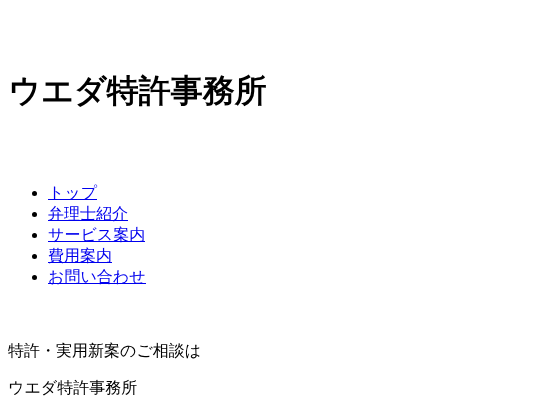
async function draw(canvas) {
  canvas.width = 549;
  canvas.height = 416;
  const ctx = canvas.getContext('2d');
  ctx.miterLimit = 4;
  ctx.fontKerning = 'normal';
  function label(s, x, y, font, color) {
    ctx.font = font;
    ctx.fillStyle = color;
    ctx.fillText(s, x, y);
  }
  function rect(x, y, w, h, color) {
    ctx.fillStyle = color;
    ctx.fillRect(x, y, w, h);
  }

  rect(0, 0, 549, 416, '#fff');
  label('ウエダ特許事務所', 8, 102, 'bold 32px WenQuanYi Zen Hei', '#000');
  ctx.beginPath();
  ctx.arc(34.5, 193.5, 2.5, 0, 2 * Math.PI);
  ctx.fill();
  rect(48, 199, 49, 1, '#00e');
  label('トップ', 48, 198, '500 16px WenQuanYi Zen Hei', '#00e');
  ctx.fillStyle = '#000';
  ctx.beginPath();
  ctx.arc(34.5, 214.5, 2.5, 0, 2 * Math.PI);
  ctx.fill();
  rect(48, 220, 80, 1, '#00e');
  label('弁理士紹介', 48, 219, '500 16px WenQuanYi Zen Hei', '#00e');
  ctx.fillStyle = '#000';
  ctx.beginPath();
  ctx.arc(34.5, 235.5, 2.5, 0, 2 * Math.PI);
  ctx.fill();
  rect(48, 241, 97, 1, '#00e');
  label('サービス案内', 48, 240, '500 16px WenQuanYi Zen Hei', '#00e');
  ctx.fillStyle = '#000';
  ctx.beginPath();
  ctx.arc(34.5, 256.5, 2.5, 0, 2 * Math.PI);
  ctx.fill();
  rect(48, 262, 64, 1, '#00e');
  label('費用案内', 48, 261, '500 16px WenQuanYi Zen Hei', '#00e');
  ctx.fillStyle = '#000';
  ctx.beginPath();
  ctx.arc(34.5, 277.5, 2.5, 0, 2 * Math.PI);
  ctx.fill();
  rect(48, 283, 98, 1, '#00e');
  label('お問い合わせ', 48, 282, '500 16px WenQuanYi Zen Hei', '#00e');
  label('特許・実用新案のご相談は', 8, 356, '500 16px WenQuanYi Zen Hei', '#000');
  label('ウエダ特許事務所', 8, 393, '500 16px WenQuanYi Zen Hei', '#000');
}

draw(document.querySelector('canvas'));
